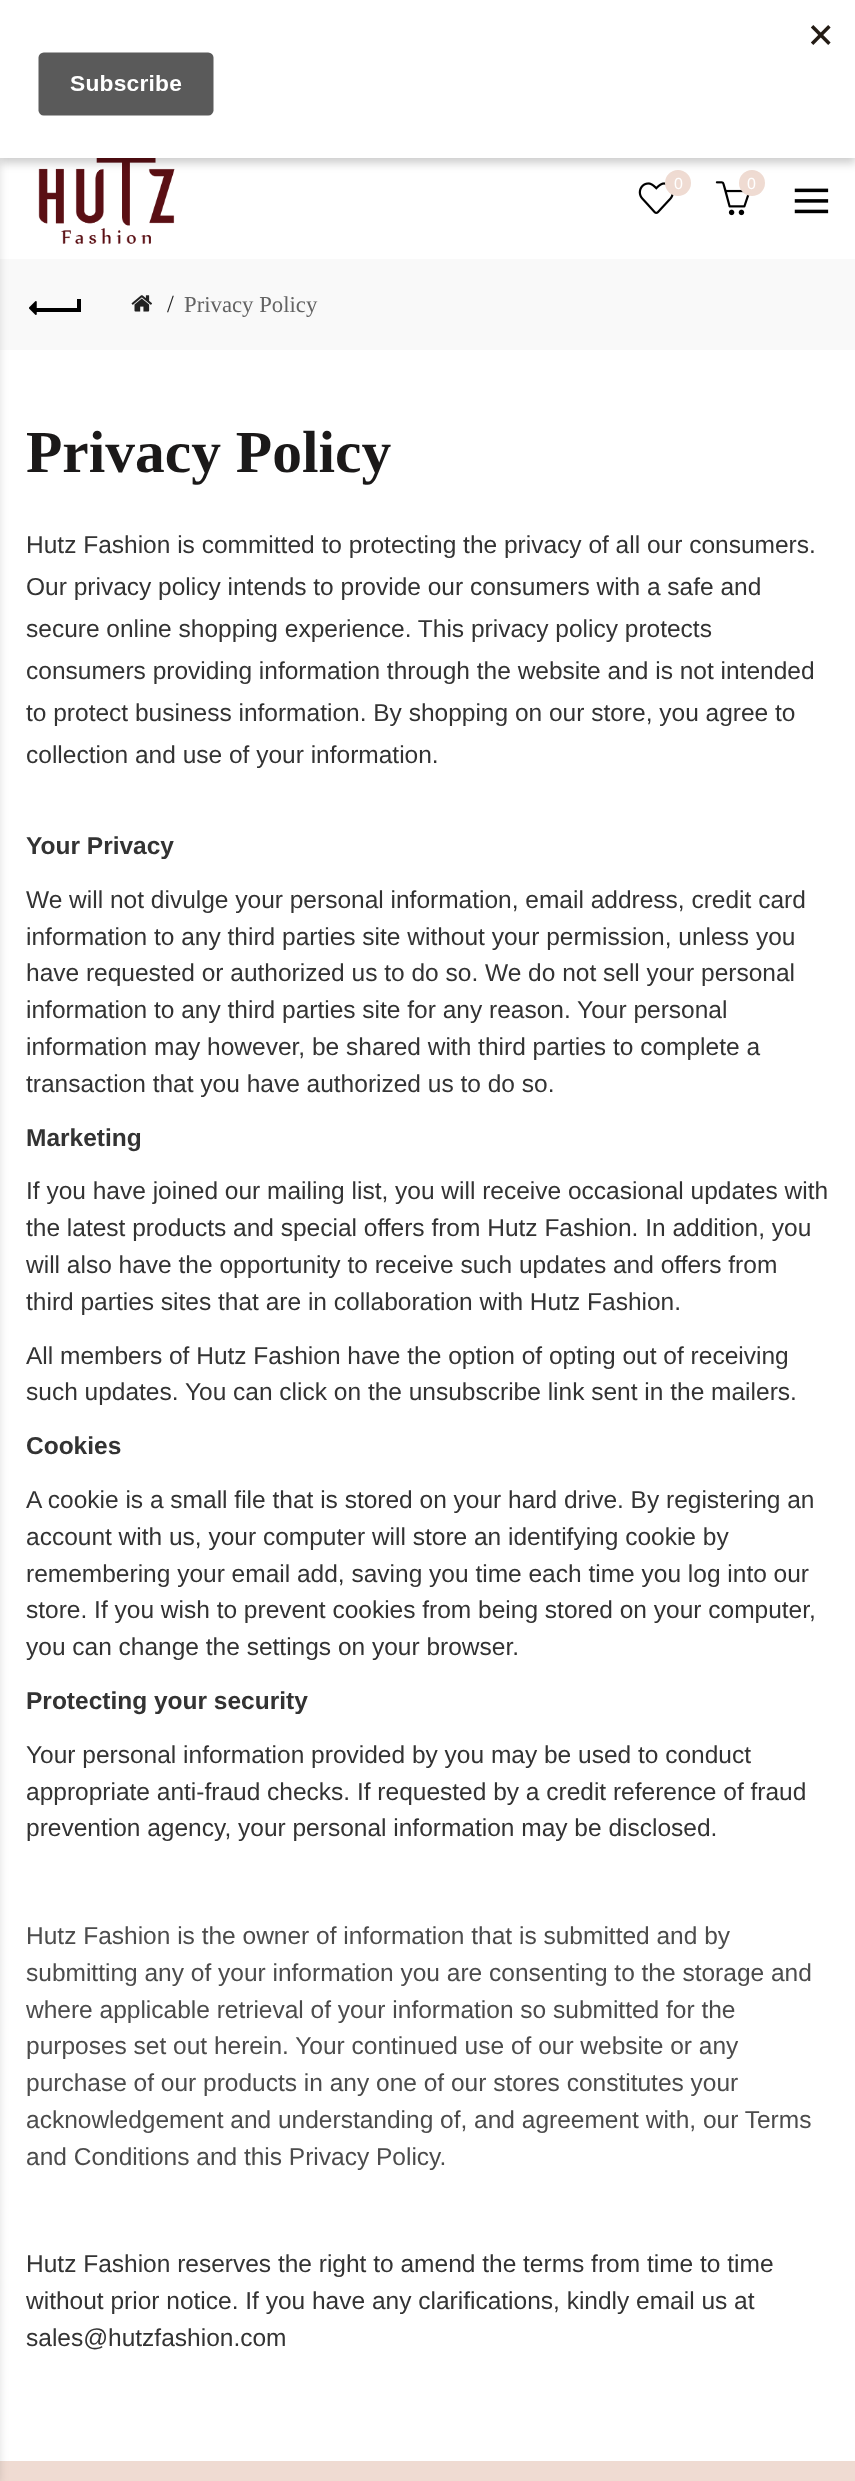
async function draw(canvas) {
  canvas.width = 855;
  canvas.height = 2481;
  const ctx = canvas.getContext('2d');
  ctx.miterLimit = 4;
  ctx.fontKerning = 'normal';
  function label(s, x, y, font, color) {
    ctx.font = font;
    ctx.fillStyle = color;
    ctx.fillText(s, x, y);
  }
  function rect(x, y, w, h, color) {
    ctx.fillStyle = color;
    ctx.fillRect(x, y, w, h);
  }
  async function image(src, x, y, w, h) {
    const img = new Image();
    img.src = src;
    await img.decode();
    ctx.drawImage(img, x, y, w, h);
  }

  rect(0, 0, 855, 2481, '#fff');
  rect(0, 259, 855, 91, '#f9f9f9');
  rect(0, 2461, 855, 20, '#efdbd2');
  ctx.fillStyle = '#00000021';
  ctx.filter = 'blur(4.5px)';
  ctx.beginPath();
  ctx.rect(-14, 2, 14, 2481);
  ctx.fill();
  ctx.filter = 'none';
  await image('assets/img2.png', 38, 158, 137, 86);
  await image('assets/img3.png', 638, 182, 36, 32);
  ctx.fillStyle = '#efdbd2';
  ctx.beginPath();
  ctx.arc(678, 183, 13, 0, 2 * Math.PI);
  ctx.fill();
  await image('assets/img4.png', 715, 181, 35, 35);
  ctx.beginPath();
  ctx.arc(752, 183, 13, 0, 2 * Math.PI);
  ctx.fill();
  ctx.fillStyle = '#00000033';
  ctx.filter = 'blur(5px)';
  ctx.beginPath();
  ctx.rect(0, 5, 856, 158);
  ctx.fill();
  ctx.filter = 'none';
  rect(0, 0, 855, 158, '#fff');
  await image('assets/img1.png', 38, 25, 793, 91);
  label('0', 674, 189, '16px Liberation Sans', '#fff');
  label('0', 747, 189, '16px Liberation Sans', '#fff');
  await image('assets/img5.png', 794, 188, 35, 26);
  rect(35, 308, 44, 4, '#000');
  await image('assets/img6.png', 29, 301, 8, 14);
  rect(77, 299, 4, 13, '#000');
  await image('assets/img7.png', 131, 295, 21, 17);
  label('/', 167, 312, '24.5px Liberation Serif', '#222');
  label('Privacy Policy', 184, 312, '22.75px Liberation Serif', '#636363');
  label('Privacy Policy', 26, 472, 'bold 59.5px Liberation Serif', '#1b1919');
  label('Hutz Fashion is committed to protecting the privacy of all our consumers.', 26, 553, '24.5px Liberation Sans', '#333');
  label('Our privacy policy intends to provide our consumers with a safe and', 26, 595, '24.5px Liberation Sans', '#333');
  label('secure online shopping experience. This privacy policy protects', 26, 637, '24.5px Liberation Sans', '#333');
  label('consumers providing information through the website and is not intended', 26, 679, '24.5px Liberation Sans', '#333');
  label('to protect business information. By shopping on our store, you agree to', 26, 721, '24.5px Liberation Sans', '#333');
  label('collection and use of your information.', 26, 763, '24.5px Liberation Sans', '#333');
  label('Your Privacy', 26, 854, 'bold 24.5px Liberation Sans', '#333');
  label('We will not divulge your personal information, email address, credit card', 26, 908, '24.5px Liberation Sans', '#333');
  label('information to any third parties site without your permission, unless you', 26, 945, '24.5px Liberation Sans', '#333');
  label('have requested or authorized us to do so. We do not sell your personal', 26, 981, '24.5px Liberation Sans', '#333');
  label('information to any third parties site for any reason. Your personal', 26, 1018, '24.5px Liberation Sans', '#333');
  label('information may however, be shared with third parties to complete a', 26, 1055, '24.5px Liberation Sans', '#333');
  label('transaction that you have authorized us to do so.', 26, 1092, '24.5px Liberation Sans', '#333');
  label('Marketing', 26, 1146, 'bold 24.5px Liberation Sans', '#333');
  label('If you have joined our mailing list, you will receive occasional updates with', 26, 1199, '24.5px Liberation Sans', '#333');
  label('the latest products and special offers from Hutz Fashion. In addition, you', 26, 1236, '24.5px Liberation Sans', '#333');
  label('will also have the opportunity to receive such updates and offers from', 26, 1273, '24.5px Liberation Sans', '#333');
  label('third parties sites that are in collaboration with Hutz Fashion.', 26, 1310, '24.5px Liberation Sans', '#333');
  label('All members of Hutz Fashion have the option of opting out of receiving', 26, 1364, '24.5px Liberation Sans', '#333');
  label('such updates. You can click on the unsubscribe link sent in the mailers.', 26, 1400, '24.5px Liberation Sans', '#333');
  label('Cookies', 26, 1454, 'bold 24.5px Liberation Sans', '#333');
  label('A cookie is a small file that is stored on your hard drive. By registering an', 26, 1508, '24.5px Liberation Sans', '#333');
  label('account with us, your computer will store an identifying cookie by', 26, 1545, '24.5px Liberation Sans', '#333');
  label('remembering your email add, saving you time each time you log into our', 26, 1582, '24.5px Liberation Sans', '#333');
  label('store. If you wish to prevent cookies from being stored on your computer,', 26, 1618, '24.5px Liberation Sans', '#333');
  label('you can change the settings on your browser.', 26, 1655, '24.5px Liberation Sans', '#333');
  label('Protecting your security', 26, 1709, 'bold 24.5px Liberation Sans', '#333');
  label('Your personal information provided by you may be used to conduct', 26, 1763, '24.5px Liberation Sans', '#333');
  label('appropriate anti-fraud checks. If requested by a credit reference of fraud', 26, 1800, '24.5px Liberation Sans', '#333');
  label('prevention agency, your personal information may be disclosed.', 26, 1836, '24.5px Liberation Sans', '#333');
  label('Hutz Fashion is the owner of information that is submitted and by', 26, 1944, '24.5px Liberation Sans', '#4c4c4c');
  label('submitting any of your information you are consenting to the storage and', 26, 1981, '24.5px Liberation Sans', '#4c4c4c');
  label('where applicable retrieval of your information so submitted for the', 26, 2018, '24.5px Liberation Sans', '#4c4c4c');
  label('purposes set out herein. Your continued use of our website or any', 26, 2054, '24.5px Liberation Sans', '#4c4c4c');
  label('purchase of our products in any one of our stores constitutes your', 26, 2091, '24.5px Liberation Sans', '#4c4c4c');
  label('acknowledgement and understanding of, and agreement with, our Terms', 26, 2128, '24.5px Liberation Sans', '#4c4c4c');
  label('and Conditions and this Privacy Policy.', 26, 2165, '24.5px Liberation Sans', '#4c4c4c');
  label('Hutz Fashion reserves the right to amend the terms from time to time', 26, 2272, '24.5px Liberation Sans', '#333');
  label('without prior notice. If you have any clarifications, kindly email us at', 26, 2309, '24.5px Liberation Sans', '#333');
  label('sales@hutzfashion.com', 26, 2346, '24.5px Liberation Sans', '#333');
}

draw(document.querySelector('canvas'));
